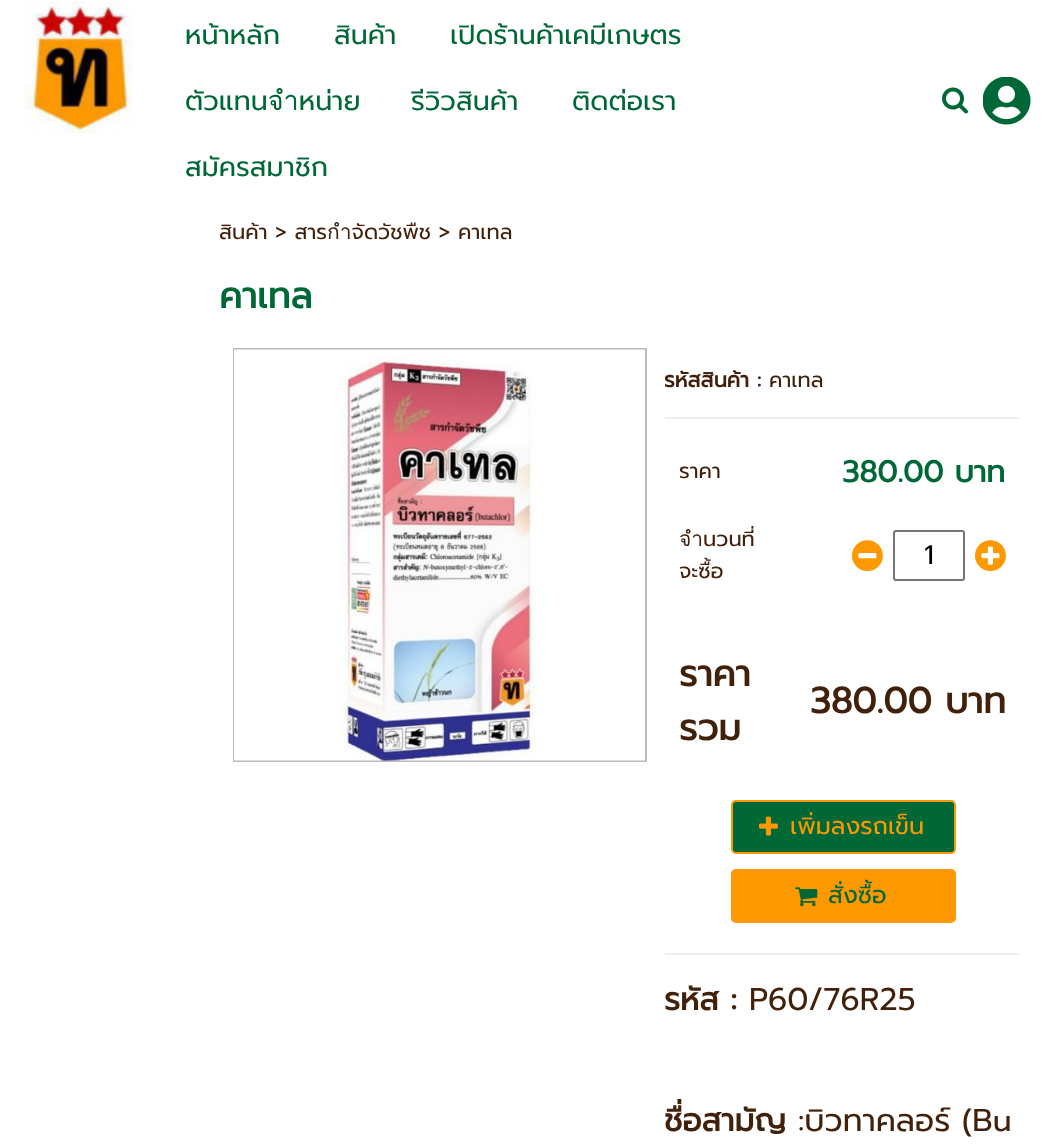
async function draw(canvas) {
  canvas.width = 1052;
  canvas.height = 1147;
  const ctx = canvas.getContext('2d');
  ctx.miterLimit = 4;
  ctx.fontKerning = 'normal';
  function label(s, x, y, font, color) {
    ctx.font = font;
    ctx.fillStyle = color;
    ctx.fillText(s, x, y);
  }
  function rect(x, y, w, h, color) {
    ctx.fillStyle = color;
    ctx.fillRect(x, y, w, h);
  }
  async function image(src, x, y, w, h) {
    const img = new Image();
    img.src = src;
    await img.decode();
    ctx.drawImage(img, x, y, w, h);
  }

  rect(0, 0, 1052, 1147, '#fff');
  await image('assets/img1.png', 24, 1, 109, 133);
  label('หน้าหลัก', 185, 44, '27px Prompt', '#006837');
  label('สินค้า', 334, 44, '27px Prompt', '#006837');
  label('เปิดร้านค้าเคมีเกษตร', 450, 44, '27px Prompt', '#006837');
  label('ตัวแทนจำหน่าย', 185, 110, '27px Prompt', '#006837');
  label('รีวิวสินค้า', 411, 110, '27px Prompt', '#006837');
  label('ติดต่อเรา', 572, 110, '27px Prompt', '#006837');
  label('สมัครสมาชิก', 185, 176, '27px Prompt', '#006837');
  await image('assets/img2.png', 942, 87, 26, 27);
  await image('assets/img3.png', 983, 77, 48, 48);
  label('สินค้า > สารกำจัดวัชพืช > คาเทล', 219, 239, '21px Prompt', '#42210b');
  label('คาเทล', 219, 308, 'bold 36px Prompt', '#006837');
  ctx.strokeStyle = '#bbb';
  ctx.lineWidth = 2;
  ctx.strokeRect(234, 349, 412, 412);
  await image('assets/img4.png', 234, 349, 411, 412);
  label('รหัสสินค้า :', 664, 387, 'bold 21px Prompt', '#42210b');
  label('คาเทล', 769, 387, '21px Prompt', '#42210b');
  rect(665, 417, 355, 2, '#eee');
  rect(665, 953, 355, 2, '#eee');
  label('ราคา', 679, 478, '21px Prompt', '#42210b');
  label('380.00 บาท', 842, 482, 'bold 30px Prompt', '#006837');
  label('จำนวนที่', 679, 546, '21px Prompt', '#42210b');
  label('จะซื้อ', 679, 578, '21px Prompt', '#42210b');
  await image('assets/img5.png', 852, 540, 31, 32);
  ctx.beginPath();
  ctx.roundRect(894, 531, 70, 49, 2);
  ctx.strokeStyle = '#767676';
  ctx.stroke();
  label('1', 924, 564, '27px Prompt', '#000');
  await image('assets/img6.png', 975, 540, 31, 32);
  label('ราคา', 679, 686, 'bold 36px Prompt', '#42210b');
  label('รวม', 679, 740, 'bold 36px Prompt', '#42210b');
  label('380.00 บาท', 810, 713, 'bold 36px Prompt', '#42210b');
  ctx.fillStyle = '#006837';
  ctx.beginPath();
  ctx.roundRect(732, 801, 223, 52, 4);
  ctx.fill();
  ctx.strokeStyle = '#fe9800';
  ctx.stroke();
  await image('assets/img7.png', 759, 816, 19, 20);
  label('เพิ่มลงรถเข็น', 790, 834, '24px Prompt', '#fe9800');
  ctx.beginPath();
  ctx.roundRect(732, 870, 223, 52, 4);
  ctx.fill();
  ctx.stroke();
  await image('assets/img8.png', 795, 887, 23, 20);
  label('สั่งซื้อ', 828, 903, '24px Prompt', '#006837');
  label('รหัส :', 664, 1010, 'bold 31.5px Prompt', '#42210b');
  label('P60/76R25', 749, 1010, '31.5px Prompt', '#42210b');
  label('ชื่อสามัญ', 664, 1131, 'bold 31.5px Prompt', '#42210b');
  label(':บิวทาคลอร์ (Bu', 798, 1131, '31.5px Prompt', '#42210b');
}

draw(document.querySelector('canvas'));
